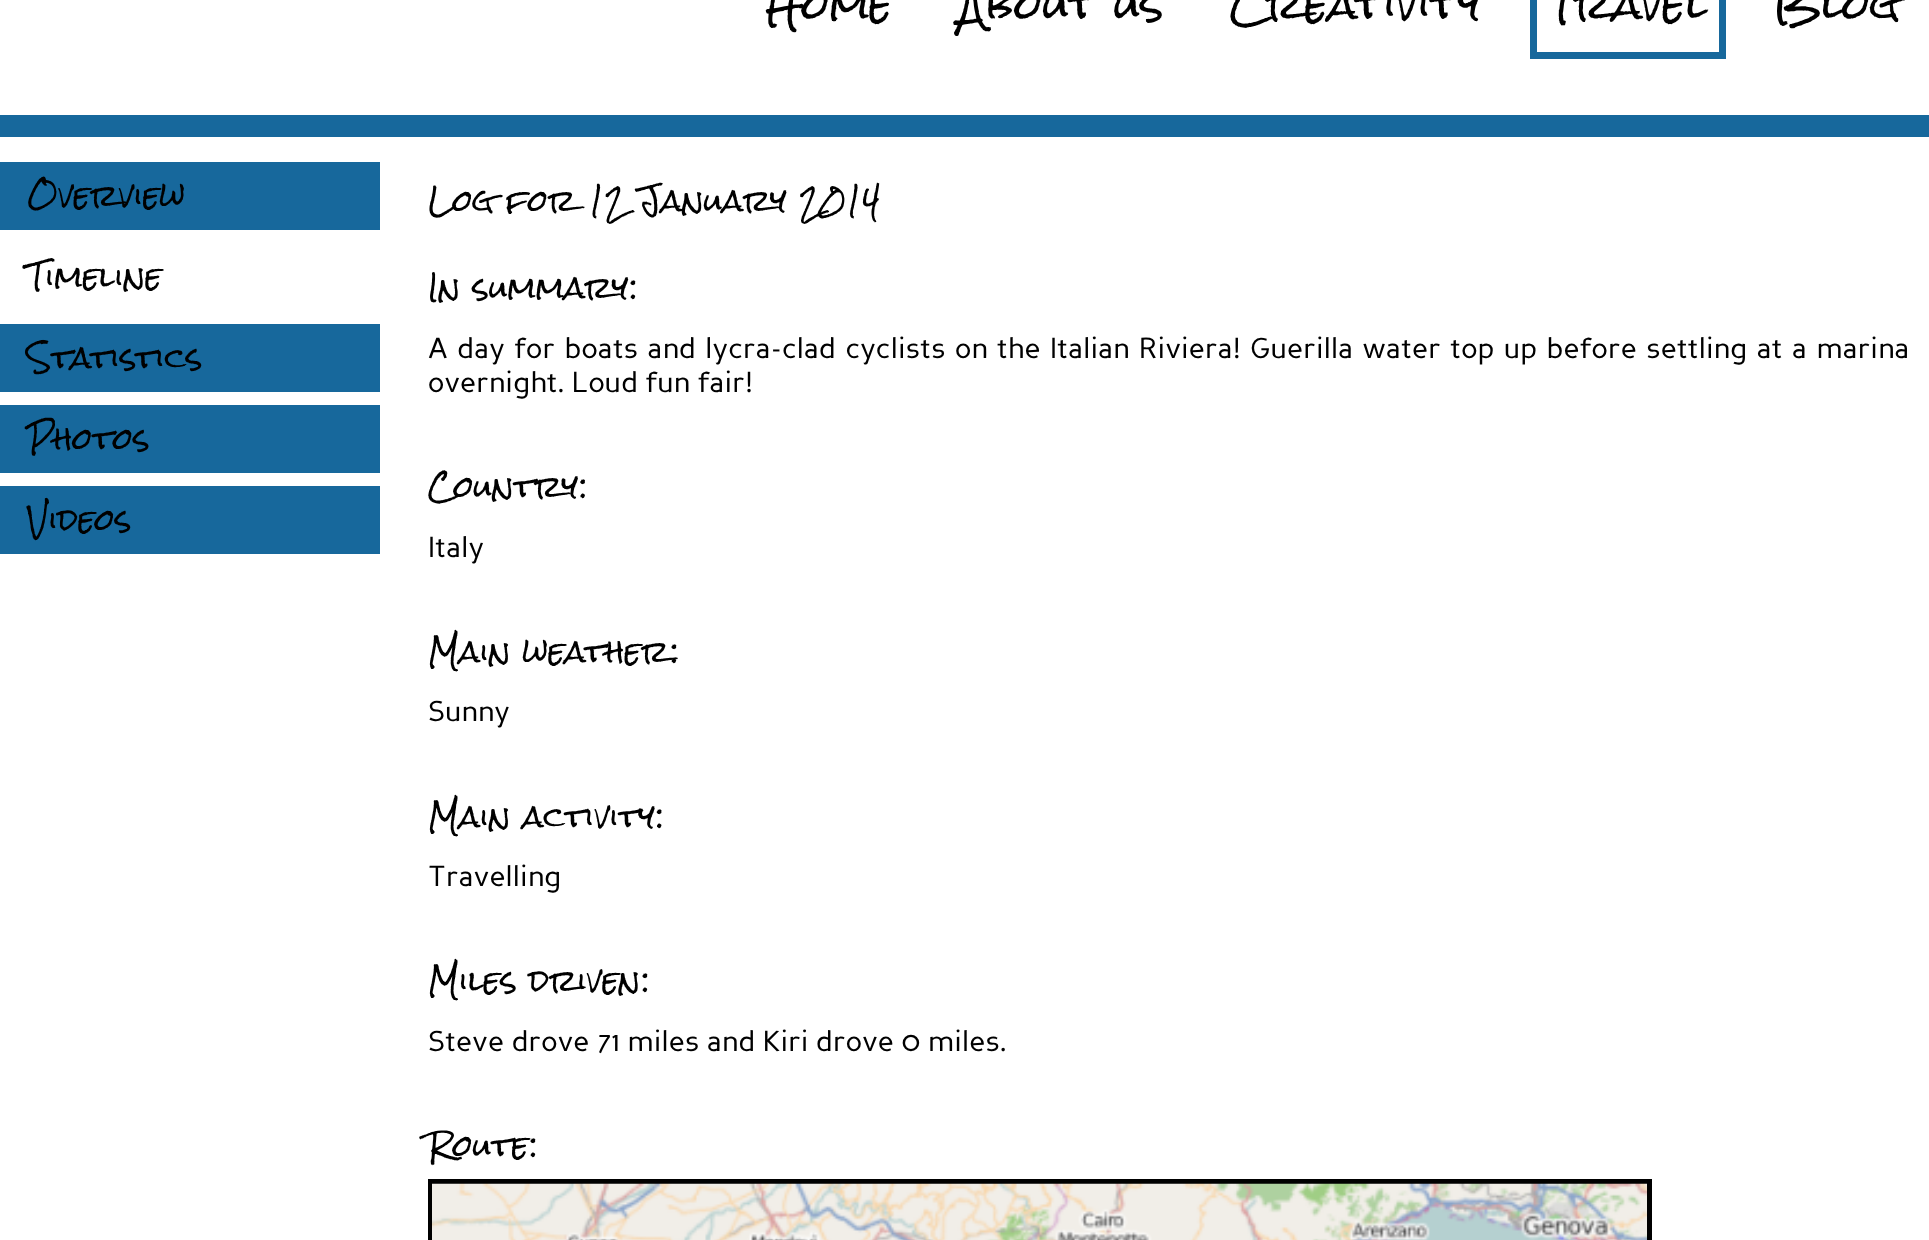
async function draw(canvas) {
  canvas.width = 1929;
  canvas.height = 1240;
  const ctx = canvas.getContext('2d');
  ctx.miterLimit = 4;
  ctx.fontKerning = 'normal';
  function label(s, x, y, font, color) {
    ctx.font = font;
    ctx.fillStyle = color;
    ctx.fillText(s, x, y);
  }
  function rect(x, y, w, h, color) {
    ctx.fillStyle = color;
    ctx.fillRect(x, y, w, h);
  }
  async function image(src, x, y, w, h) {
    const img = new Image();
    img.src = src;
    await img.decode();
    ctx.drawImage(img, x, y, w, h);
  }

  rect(0, 0, 1929, 1240, '#fff');
  ctx.letterSpacing = '0.23px';
  label('Home', 766, 20, '40.25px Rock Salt', '#000');
  label('About us', 959, 20, '40.25px Rock Salt', '#000');
  label('Creativity', 1230, 20, '40.25px Rock Salt', '#000');
  ctx.strokeStyle = '#17689c';
  ctx.lineWidth = 7;
  ctx.strokeRect(1533.5, -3.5, 189, 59);
  label('Travel', 1548, 20, '40.25px Rock Salt', '#000');
  label('Blog', 1773, 20, '40.25px Rock Salt', '#000');
  rect(0, 115, 1929, 22, '#17689c');
  rect(0, 162, 380, 68, '#17689c');
  label('Overview', 27, 207, '28.8px Rock Salt', '#000');
  label('Timeline', 27, 288, '28.8px Rock Salt', '#000');
  rect(0, 324, 380, 68, '#17689c');
  label('Statistics', 27, 369, '28.8px Rock Salt', '#000');
  rect(0, 405, 380, 68, '#17689c');
  label('Photos', 27, 450, '28.8px Rock Salt', '#000');
  rect(0, 486, 380, 68, '#17689c');
  label('Videos', 27, 531, '28.8px Rock Salt', '#000');
  label('Log for 12 January 2014', 428, 212, '28.8px Rock Salt', '#000');
  label('In summary:', 428, 299, '28.8px Rock Salt', '#000');
  ctx.wordSpacing = '1.9px';
  label('A day for boats and lycra-clad cyclists on the Italian Riviera! Guerilla water top up before settling at a marina', 428, 358, '28.8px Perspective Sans', '#000');
  ctx.wordSpacing = '0px';
  label('overnight. Loud fun fair!', 428, 392, '28.8px Perspective Sans', '#000');
  label('Country:', 428, 498, '28.8px Rock Salt', '#000');
  label('Italy', 428, 557, '28.8px Perspective Sans', '#000');
  label('Main weather:', 428, 663, '28.8px Rock Salt', '#000');
  label('Sunny', 428, 721, '28.8px Perspective Sans', '#000');
  label('Main activity:', 428, 828, '28.8px Rock Salt', '#000');
  label('Travelling', 428, 886, '28.8px Perspective Sans', '#000');
  label('Miles driven:', 428, 992, '28.8px Rock Salt', '#000');
  label('Steve drove 71 miles and Kiri drove 0 miles.', 428, 1051, '28.8px Perspective Sans', '#000');
  label('Route:', 428, 1157, '28.8px Rock Salt', '#000');
  ctx.strokeStyle = '#000';
  ctx.lineWidth = 5;
  ctx.strokeRect(430.5, 1181.5, 1219, 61);
  await image('assets/img1.png', 432, 1183, 1215, 57);
}

draw(document.querySelector('canvas'));
